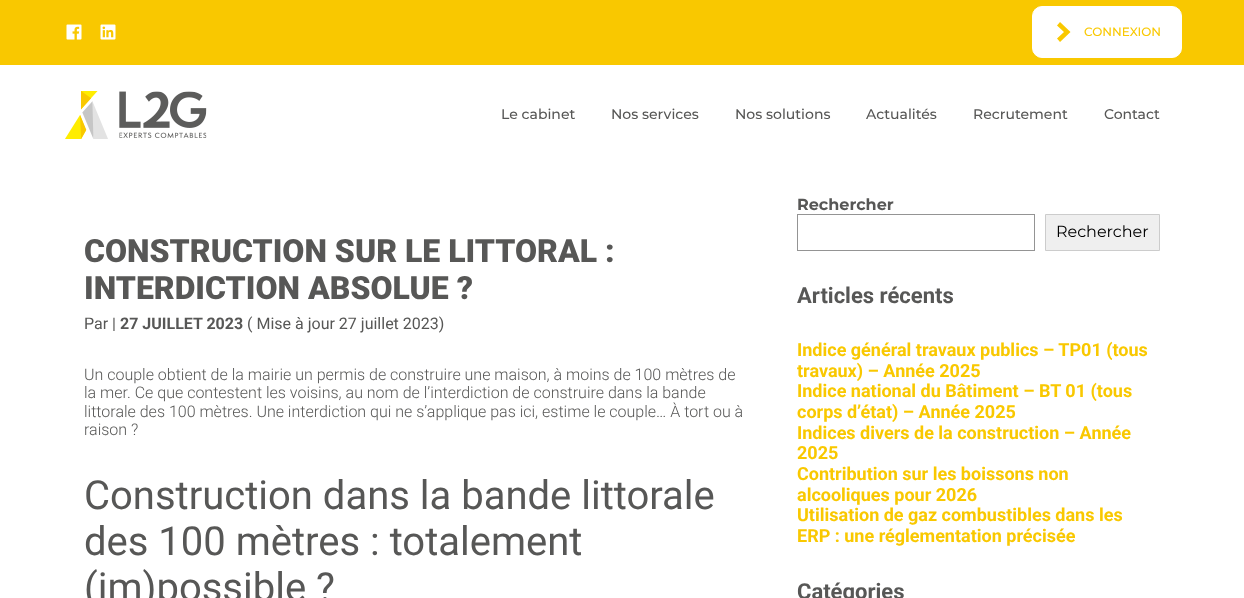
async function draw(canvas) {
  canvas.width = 1244;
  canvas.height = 598;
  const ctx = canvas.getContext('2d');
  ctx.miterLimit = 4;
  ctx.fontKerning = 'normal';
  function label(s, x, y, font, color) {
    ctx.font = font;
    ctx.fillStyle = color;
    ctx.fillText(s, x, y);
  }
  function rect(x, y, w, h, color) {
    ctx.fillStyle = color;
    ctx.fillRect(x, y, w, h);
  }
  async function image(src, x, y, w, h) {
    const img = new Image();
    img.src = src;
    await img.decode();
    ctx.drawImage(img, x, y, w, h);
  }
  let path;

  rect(0, 0, 1244, 598, '#fff');
  rect(0, 0, 1244, 65, '#f9c800');
  await image('assets/img1.png', 66, 24, 16, 16);
  await image('assets/img2.png', 100, 24, 16, 16);
  ctx.fillStyle = '#fff';
  ctx.beginPath();
  ctx.roundRect(1032.5, 6.5, 149, 51, 9.5);
  ctx.fill();
  ctx.strokeStyle = '#fff';
  ctx.stroke();
  ctx.fillStyle = '#f9c800';
  path = new Path2D('M1064 32L1057 25.5L1060 22L1070.5 32L1060 42L1057 38.5Z');
  ctx.fill(path, 'evenodd');
  label('CONNEXION', 1084, 36, '500 12px Montserrat', '#f9c800');
  await image('assets/img3.png', 65, 91, 142, 48);
  label('Le cabinet', 501, 119, '500 14px Montserrat', '#575756');
  label('Nos services', 611, 119, '500 14px Montserrat', '#575756');
  label('Nos solutions', 735, 119, '500 14px Montserrat', '#575756');
  label('Actualités', 866, 119, '500 14px Montserrat', '#575756');
  label('Recrutement', 973, 119, '500 14px Montserrat', '#575756');
  label('Contact', 1104, 119, '500 14px Montserrat', '#575756');
  label('CONSTRUCTION SUR LE LITTORAL :', 84, 262, '900 32px Roboto', '#575756');
  label('INTERDICTION ABSOLUE ?', 84, 299, '900 32px Roboto', '#575756');
  label('Par |', 84, 329, '16px Roboto', '#575756');
  label('27 JUILLET 2023', 120, 329, 'bold 16px Roboto', '#575756');
  label('( Mise à jour 27 juillet 2023)', 247, 329, '16px Roboto', '#575756');
  label('Un couple obtient de la mairie un permis de construire une maison, à moins de 100 mètres de', 84, 380, '300 16px Roboto', '#575756');
  label('la mer. Ce que contestent les voisins, au nom de l’interdiction de construire dans la bande', 84, 398, '300 16px Roboto', '#575756');
  label('littorale des 100 mètres. Une interdiction qui ne s’applique pas ici, estime le couple… À tort ou à', 84, 417, '300 16px Roboto', '#575756');
  label('raison ?', 84, 435, '300 16px Roboto', '#575756');
  label('Construction dans la bande littorale', 84, 509, '40px Roboto', '#575756');
  label('des 100 mètres : totalement', 84, 555, '40px Roboto', '#575756');
  label('(im)possible ?', 84, 601, '40px Roboto', '#575756');
  label('Rechercher', 797, 210, 'bold 16px Montserrat', '#575756');
  ctx.strokeStyle = '#949494';
  ctx.strokeRect(797.5, 214.5, 237, 36);
  ctx.fillStyle = '#efefef';
  ctx.beginPath();
  ctx.rect(1045.5, 214.5, 114, 36);
  ctx.fill();
  ctx.strokeStyle = '#ccc';
  ctx.stroke();
  label('Rechercher', 1056, 237, '16px Montserrat', '#000');
  label('Articles récents', 797, 303, 'bold 22px Roboto', '#575756');
  label('Indice général travaux publics – TP01 (tous', 797, 356, 'bold 18px Roboto', '#f9c800');
  label('travaux) – Année 2025', 797, 377, 'bold 18px Roboto', '#f9c800');
  label('Indice national du Bâtiment – BT 01 (tous', 797, 397, 'bold 18px Roboto', '#f9c800');
  label('corps d’état) – Année 2025', 797, 418, 'bold 18px Roboto', '#f9c800');
  label('Indices divers de la construction – Année', 797, 439, 'bold 18px Roboto', '#f9c800');
  label('2025', 797, 459, 'bold 18px Roboto', '#f9c800');
  label('Contribution sur les boissons non', 797, 480, 'bold 18px Roboto', '#f9c800');
  label('alcooliques pour 2026', 797, 501, 'bold 18px Roboto', '#f9c800');
  label('Utilisation de gaz combustibles dans les', 797, 521, 'bold 18px Roboto', '#f9c800');
  label('ERP : une réglementation précisée', 797, 542, 'bold 18px Roboto', '#f9c800');
  label('Catégories', 797, 599, 'bold 22px Roboto', '#575756');
}

draw(document.querySelector('canvas'));
